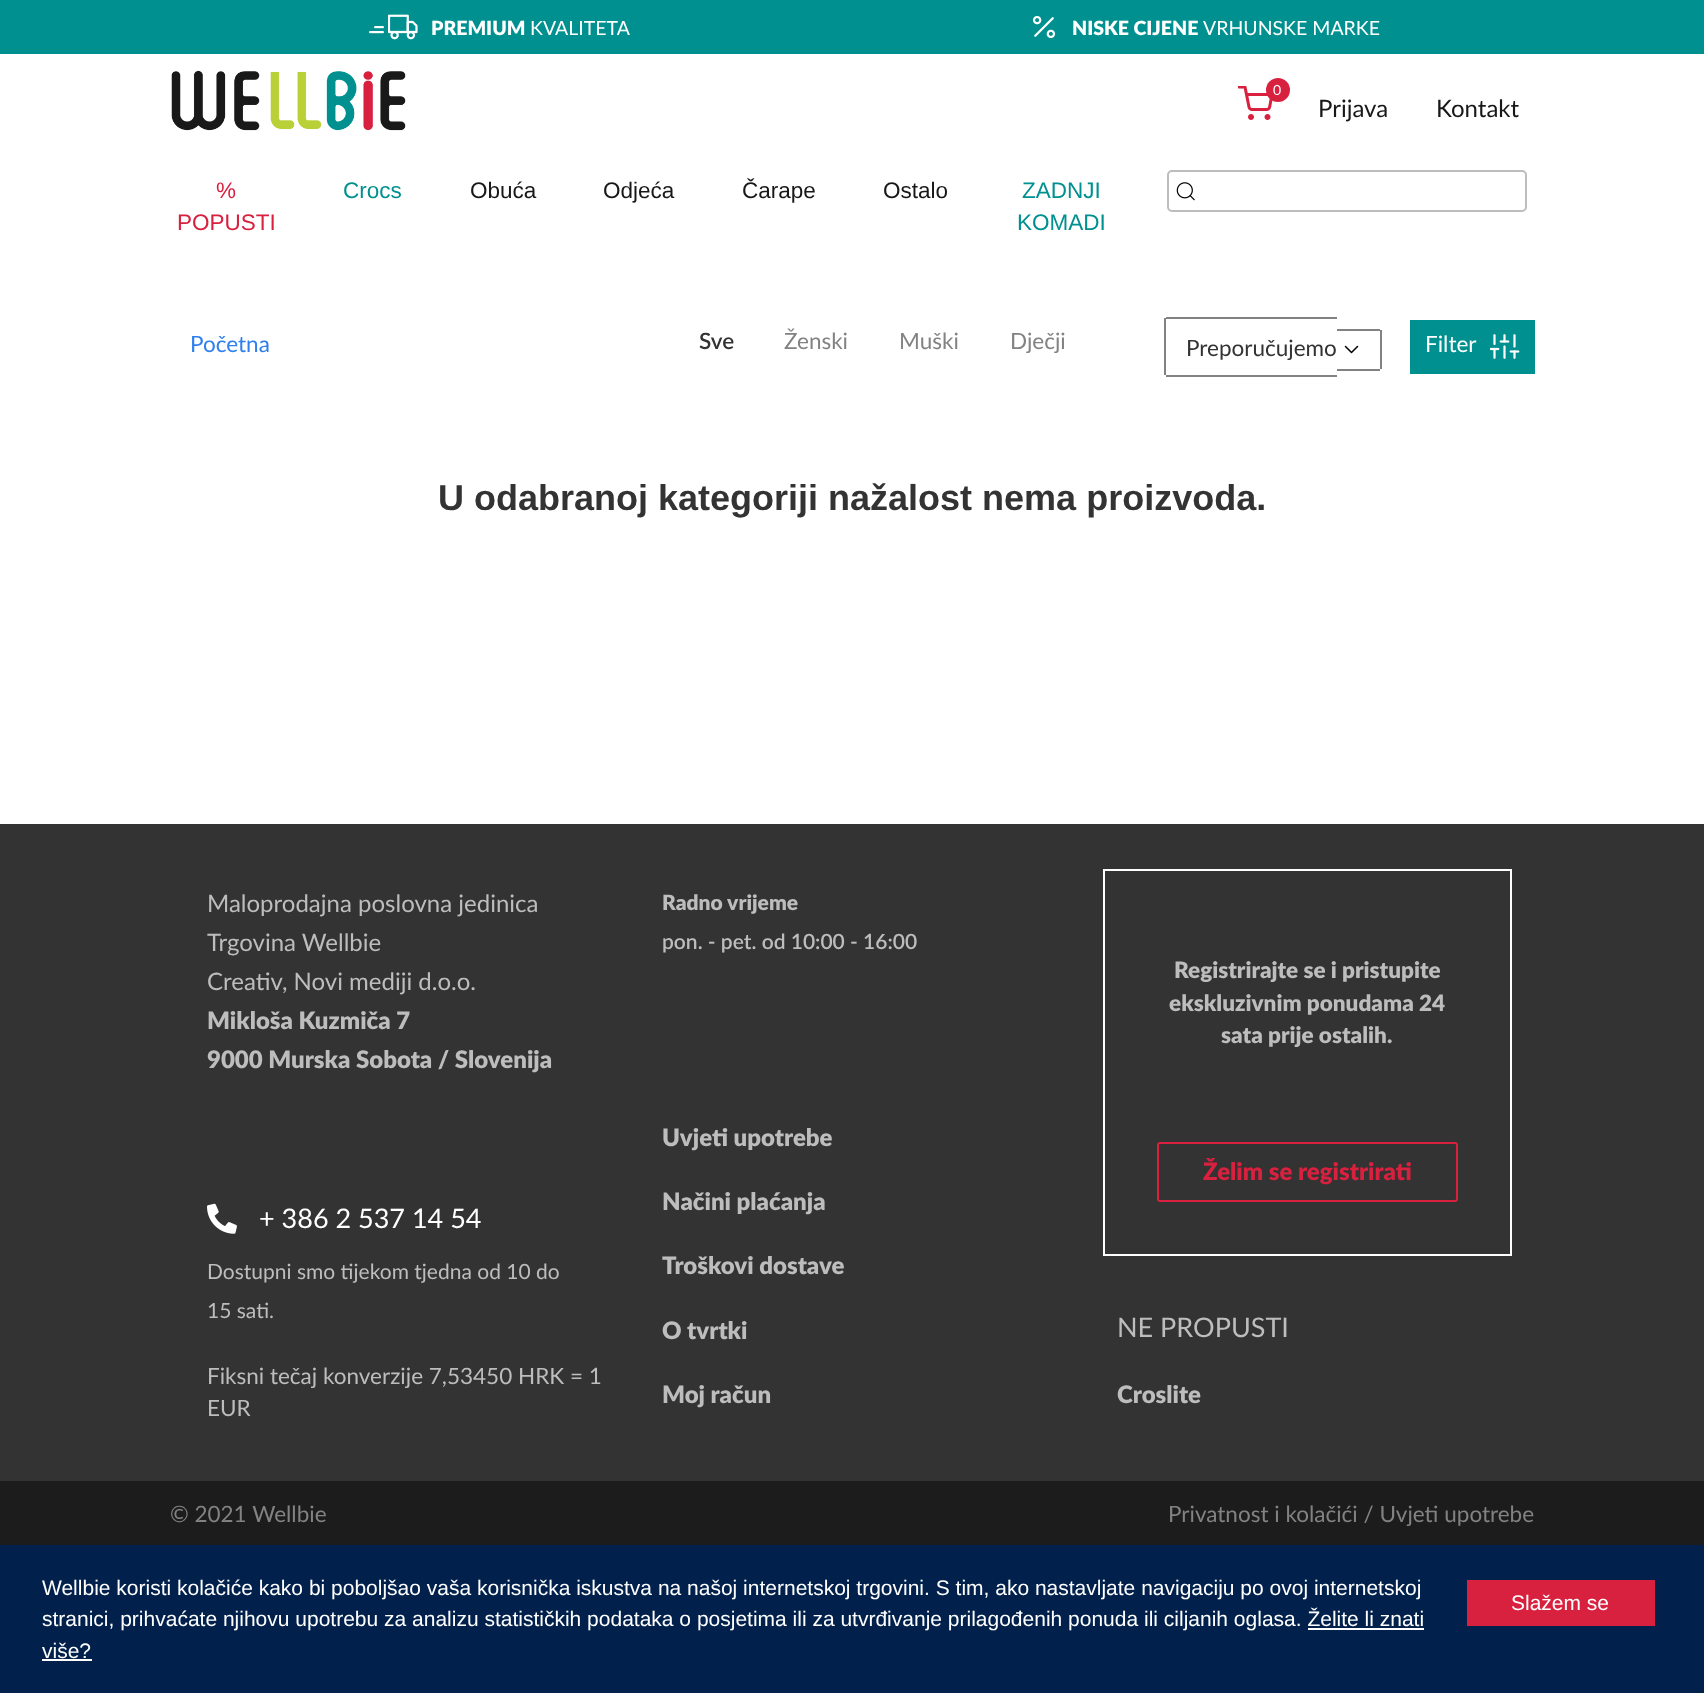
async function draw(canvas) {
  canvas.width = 1704;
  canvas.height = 1693;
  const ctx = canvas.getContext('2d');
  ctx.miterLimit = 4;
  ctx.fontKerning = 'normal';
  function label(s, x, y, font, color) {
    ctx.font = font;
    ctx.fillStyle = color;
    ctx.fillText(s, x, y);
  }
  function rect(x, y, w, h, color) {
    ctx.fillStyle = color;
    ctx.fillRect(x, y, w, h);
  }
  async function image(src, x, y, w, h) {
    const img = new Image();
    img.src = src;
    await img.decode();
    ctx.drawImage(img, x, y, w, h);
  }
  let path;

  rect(0, 0, 1704, 1693, '#fff');
  rect(0, 0, 1704, 54, '#009090');
  await image('assets/img1.png', 369, 14, 49, 26);
  label('PREMIUM', 431, 35, '900 19.5px Lato', '#fff');
  label('KVALITETA', 530, 35, '19.5px Lato', '#fff');
  await image('assets/img2.png', 1032, 15, 24, 24);
  label('NISKE CIJENE', 1072, 35, '900 19.5px Lato', '#fff');
  label('VRHUNSKE MARKE', 1203, 35, '19.5px Lato', '#fff');
  await image('assets/img3.png', 171, 70, 235, 61);
  await image('assets/img4.png', 1238, 86, 35, 34);
  ctx.fillStyle = '#d8203f';
  ctx.beginPath();
  ctx.arc(1278, 90, 12, 0, 2 * Math.PI);
  ctx.fill();
  label('0', 1273, 95, '14px Lato', '#fff');
  label('Prijava', 1318, 117, '24px Lato', '#181818');
  label('Kontakt', 1436, 117, '24px Lato', '#181818');
  label('%', 216, 198, '22.5px Liberation Sans', '#d8203f');
  label('POPUSTI', 177, 230, '22.5px Liberation Sans', '#d8203f');
  label('Crocs', 343, 198, '22.5px Liberation Sans', '#009090');
  label('Obuća', 470, 198, '22.5px Liberation Sans', '#181818');
  label('Odjeća', 603, 198, '22.5px Liberation Sans', '#181818');
  label('Čarape', 742, 198, '22.5px Liberation Sans', '#181818');
  label('Ostalo', 883, 198, '22.5px Liberation Sans', '#181818');
  label('ZADNJI', 1022, 198, '22.5px Liberation Sans', '#009090');
  label('KOMADI', 1017, 230, '22.5px Liberation Sans', '#009090');
  ctx.beginPath();
  ctx.roundRect(1168, 171, 358, 40, 4);
  ctx.strokeStyle = '#bdbdbd';
  ctx.lineWidth = 2;
  ctx.stroke();
  await image('assets/img5.png', 1176, 182, 19, 19);
  label('Sve', 699, 349, '600 22.5px Lato', '#333');
  label('Ženski', 784, 349, '22.5px Lato', '#828282');
  label('Muški', 899, 349, '22.5px Lato', '#828282');
  label('Dječji', 1010, 349, '22.5px Lato', '#828282');
  label('Početna', 190, 352, '22.5px Lato', '#2f80ed');
  label('Preporučujemo', 1186, 356, '22.5px Lato', '#333');
  rect(1166, 317, 171, 2, '#828282');
  rect(1166, 375, 171, 2, '#828282');
  rect(1164, 318, 2, 57, '#828282');
  rect(1337, 329, 43, 2, '#828282');
  rect(1380, 330, 2, 39, '#828282');
  rect(1337, 369, 43, 2, '#828282');
  path = new Path2D('M1345.5 346.5L1351.5 352.5L1357.5 346.5');
  ctx.strokeStyle = '#000';
  ctx.lineWidth = 1.5;
  ctx.lineCap = 'round';
  ctx.lineJoin = 'round';
  ctx.stroke(path);
  rect(1410, 320, 125, 54, '#009090');
  label('Filter', 1425, 352, '22.5px Lato', '#fff');
  await image('assets/img6.png', 1490, 334, 30, 25);
  label('U odabranoj kategoriji nažalost nema proizvoda.', 438, 510, 'bold 36px Liberation Sans', '#333');
  rect(0, 824, 1704, 657, '#333');
  label('Maloprodajna poslovna jedinica', 207, 912, '24px Lato', '#bdbdbd');
  label('Trgovina Wellbie', 207, 951, '24px Lato', '#bdbdbd');
  label('Creativ, Novi mediji d.o.o.', 207, 990, '24px Lato', '#bdbdbd');
  label('Mikloša Kuzmiča 7', 207, 1029, '900 24px Lato', '#bdbdbd');
  label('9000 Murska Sobota / Slovenija', 207, 1068, '900 24px Lato', '#bdbdbd');
  await image('assets/img7.png', 207, 1203, 30, 31);
  label('+ 386 2 537 14 54', 259, 1228, '27px Lato', '#fff');
  label('Dostupni smo tijekom tjedna od 10 do', 207, 1279, '21px Lato', '#bdbdbd');
  label('15 sati.', 207, 1318, '21px Lato', '#bdbdbd');
  label('Fiksni tečaj konverzije 7,53450 HRK = 1', 207, 1384, '22.5px Lato', '#bdbdbd');
  label('EUR', 207, 1416, '22.5px Lato', '#bdbdbd');
  label('Radno vrijeme', 662, 910, '900 21px Lato', '#bdbdbd');
  label('pon. - pet. od 10:00 - 16:00', 662, 949, '600 21px Lato', '#bdbdbd');
  label('Uvjeti upotrebe', 662, 1146, '900 24px Lato', '#bdbdbd');
  label('Načini plaćanja', 662, 1210, '900 24px Lato', '#bdbdbd');
  label('Troškovi dostave', 662, 1274, '900 24px Lato', '#bdbdbd');
  label('O tvrtki', 662, 1339, '900 24px Lato', '#bdbdbd');
  label('Moj račun', 662, 1403, '900 24px Lato', '#bdbdbd');
  ctx.strokeStyle = '#fff';
  ctx.lineWidth = 2;
  ctx.lineJoin = 'miter';
  ctx.strokeRect(1104, 870, 407, 385);
  label('Registrirajte se i pristupite', 1174, 978, '900 22.5px Lato', '#bdbdbd');
  label('ekskluzivnim ponudama 24', 1169, 1011, '900 22.5px Lato', '#bdbdbd');
  label('sata prije ostalih.', 1221, 1043, '900 22.5px Lato', '#bdbdbd');
  ctx.beginPath();
  ctx.roundRect(1158, 1143, 299, 58, 2);
  ctx.strokeStyle = '#d8203f';
  ctx.stroke();
  label('Želim se registrirati', 1203, 1180, '800 24px Lato', '#d8203f');
  label('NE PROPUSTI', 1117, 1337, '27px Lato', '#bdbdbd');
  label('Croslite', 1117, 1403, '800 24px Lato', '#bdbdbd');
  rect(0, 1481, 1704, 64, '#1c1c1c');
  label('© 2021 Wellbie', 170, 1522, '22.5px Lato', '#828282');
  label('Privatnost i kolačići / Uvjeti upotrebe', 1168, 1522, '22.5px Lato', '#828282');
  rect(0, 1545, 1704, 148, '#01214c');
  label('Wellbie koristi kolačiće kako bi poboljšao vaša korisnička iskustva na našoj internetskoj trgovini. S tim, ako nastavljate navigaciju po ovoj internetskoj', 42, 1595, '21px Liberation Sans', '#fff');
  label('stranici, prihvaćate njihovu upotrebu za analizu statističkih podataka o posjetima ili za utvrđivanje prilagođenih ponuda ili ciljanih oglasa. Želite li znati', 42, 1626, '21px Liberation Sans', '#fff');
  label('više?', 42, 1658, '21px Liberation Sans', '#fff');
  rect(1308, 1628, 116, 2, '#fff');
  rect(42, 1659, 50, 2, '#fff');
  rect(1467, 1580, 188, 46, '#d8203f');
  label('Slažem se', 1511, 1610, '21px Liberation Sans', '#fff');
}

draw(document.querySelector('canvas'));
